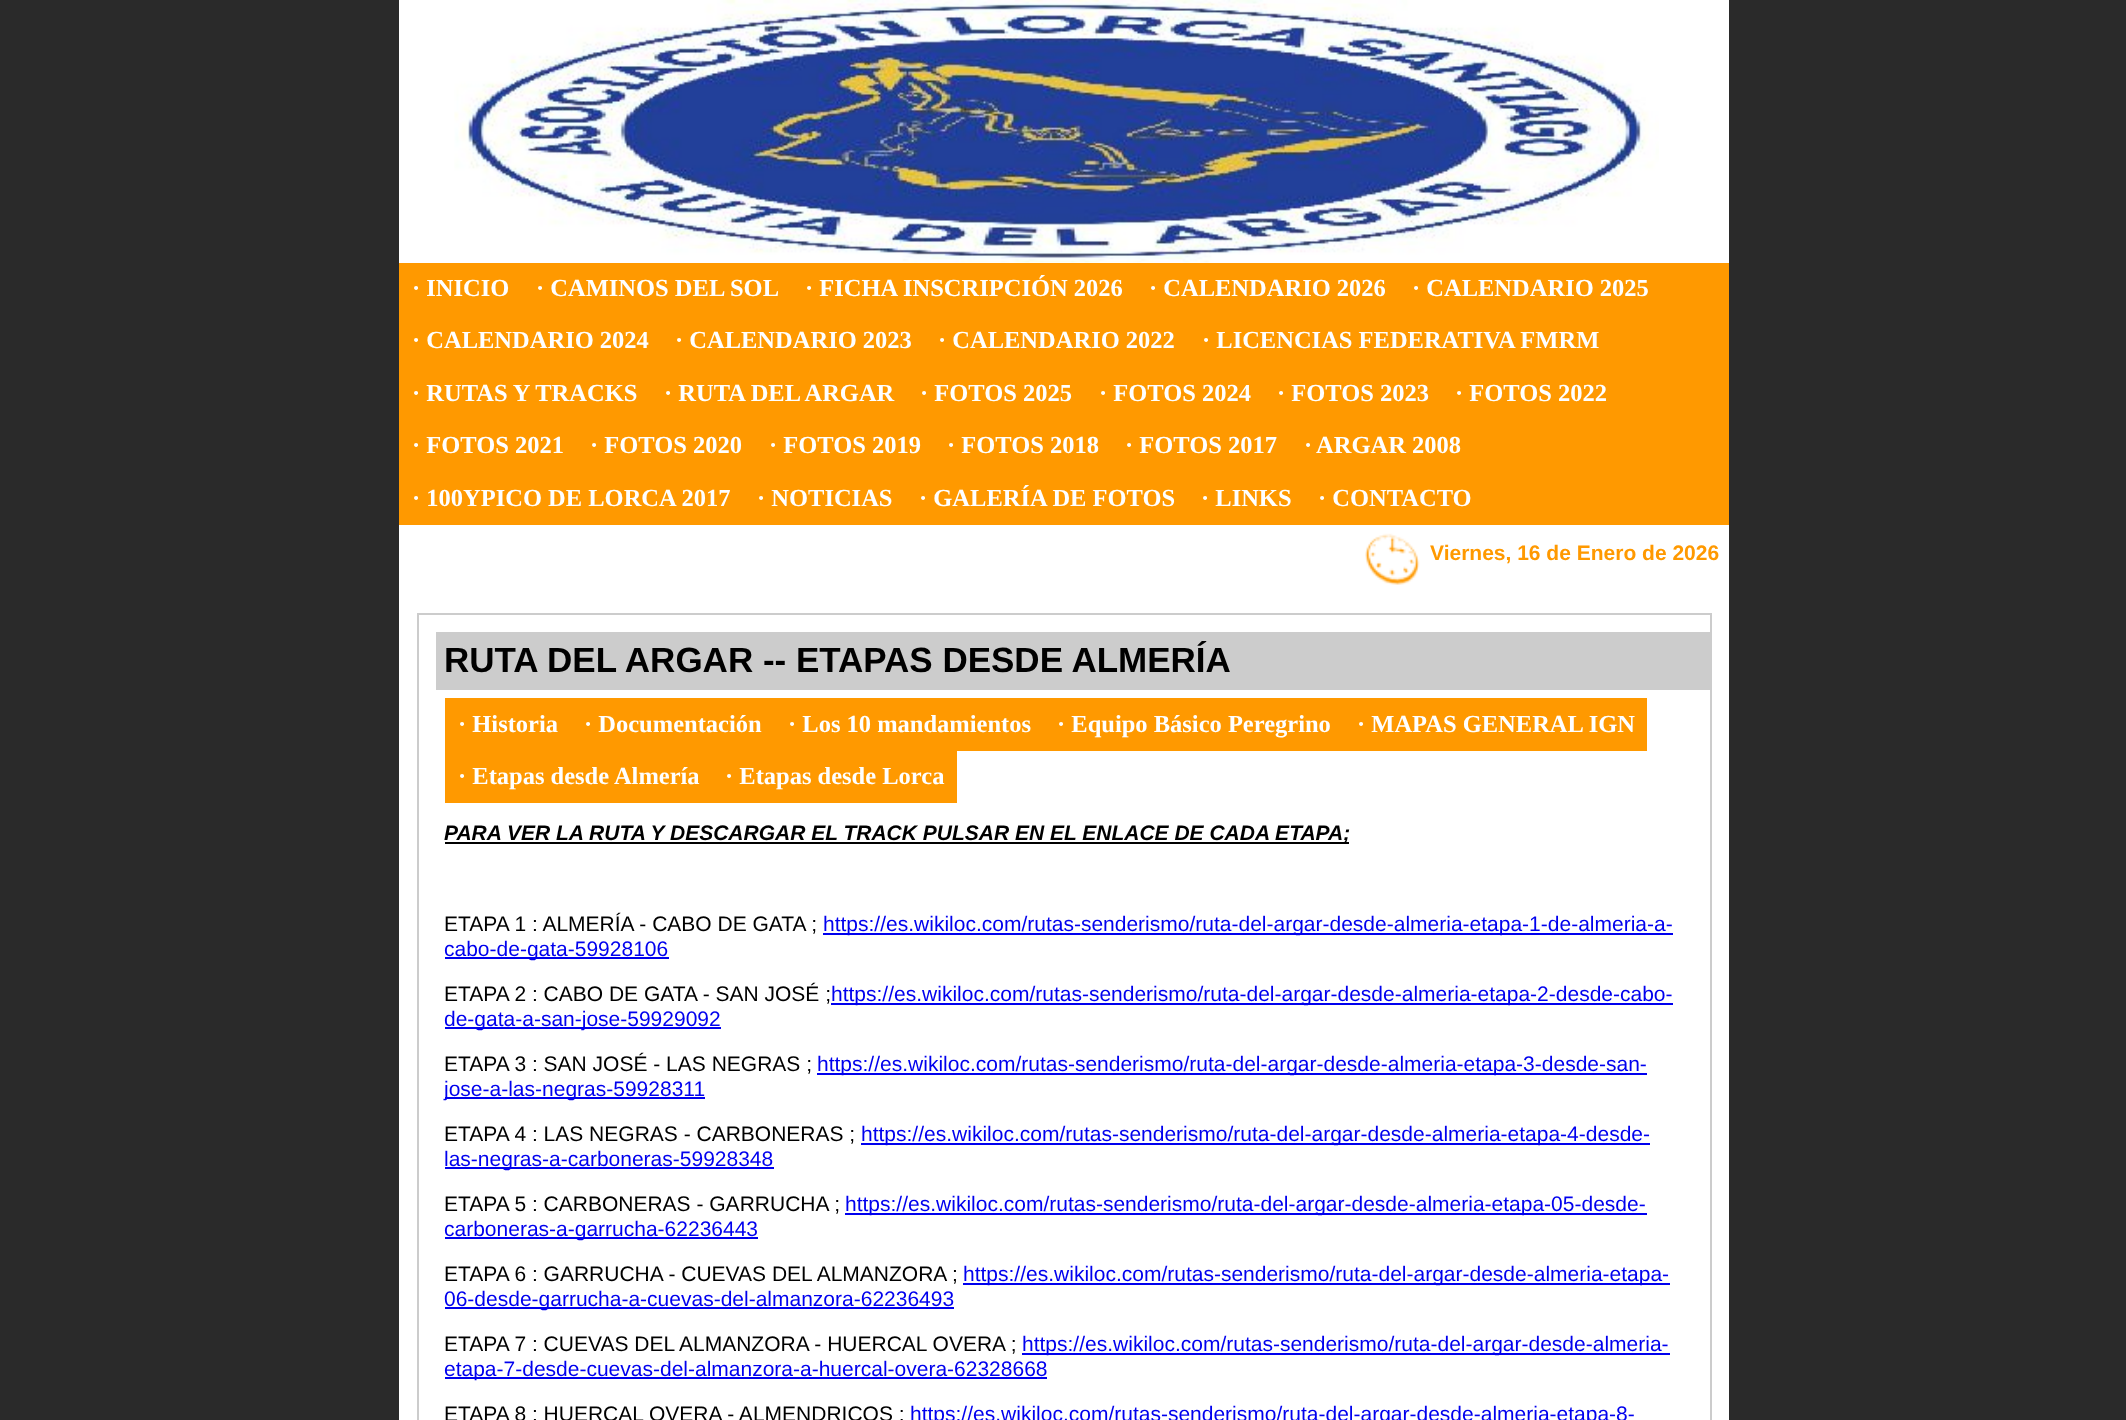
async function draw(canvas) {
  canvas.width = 2126;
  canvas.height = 1420;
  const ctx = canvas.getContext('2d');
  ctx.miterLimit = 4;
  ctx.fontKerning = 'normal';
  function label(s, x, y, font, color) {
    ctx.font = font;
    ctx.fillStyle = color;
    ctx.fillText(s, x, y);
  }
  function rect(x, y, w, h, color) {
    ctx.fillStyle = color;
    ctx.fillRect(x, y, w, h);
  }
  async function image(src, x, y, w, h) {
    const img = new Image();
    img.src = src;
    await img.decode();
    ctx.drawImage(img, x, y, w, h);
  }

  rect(0, 0, 2126, 1420, '#2a2a2a');
  rect(399, 0, 1330, 1420, '#fff');
  await image('assets/img1.png', 454, 0, 1205, 263);
  rect(1474, 263, 255, 262, '#f90');
  rect(399, 263, 1075, 52, '#f90');
  label('· INICIO', 412, 296, 'bold 24.5px Liberation Serif', '#fff');
  label('· CAMINOS DEL SOL', 536, 296, 'bold 24.5px Liberation Serif', '#fff');
  label('· FICHA INSCRIPCIÓN 2026', 805, 296, 'bold 24.5px Liberation Serif', '#fff');
  label('· CALENDARIO 2026', 1149, 296, 'bold 24.5px Liberation Serif', '#fff');
  label('· CALENDARIO 2025', 1412, 296, 'bold 24.5px Liberation Serif', '#fff');
  rect(399, 315, 1075, 53, '#f90');
  label('· CALENDARIO 2024', 412, 348, 'bold 24.5px Liberation Serif', '#fff');
  label('· CALENDARIO 2023', 675, 348, 'bold 24.5px Liberation Serif', '#fff');
  label('· CALENDARIO 2022', 938, 348, 'bold 24.5px Liberation Serif', '#fff');
  label('· LICENCIAS FEDERATIVA FMRM', 1202, 348, 'bold 24.5px Liberation Serif', '#fff');
  rect(399, 368, 1075, 52, '#f90');
  label('· RUTAS Y TRACKS', 412, 401, 'bold 24.5px Liberation Serif', '#fff');
  label('· RUTA DEL ARGAR', 664, 401, 'bold 24.5px Liberation Serif', '#fff');
  label('· FOTOS 2025', 920, 401, 'bold 24.5px Liberation Serif', '#fff');
  label('· FOTOS 2024', 1099, 401, 'bold 24.5px Liberation Serif', '#fff');
  label('· FOTOS 2023', 1277, 401, 'bold 24.5px Liberation Serif', '#fff');
  label('· FOTOS 2022', 1455, 401, 'bold 24.5px Liberation Serif', '#fff');
  rect(399, 420, 1075, 53, '#f90');
  label('· FOTOS 2021', 412, 453, 'bold 24.5px Liberation Serif', '#fff');
  label('· FOTOS 2020', 590, 453, 'bold 24.5px Liberation Serif', '#fff');
  label('· FOTOS 2019', 769, 453, 'bold 24.5px Liberation Serif', '#fff');
  label('· FOTOS 2018', 947, 453, 'bold 24.5px Liberation Serif', '#fff');
  label('· FOTOS 2017', 1125, 453, 'bold 24.5px Liberation Serif', '#fff');
  label('·', 1304, 453, 'bold 24.5px Liberation Serif', '#fff');
  label('ARGAR 2008', 1316, 453, 'bold 24.5px Liberation Serif', '#fff');
  rect(399, 473, 1075, 52, '#f90');
  label('· 100YPICO DE LORCA 2017', 412, 506, 'bold 24.5px Liberation Serif', '#fff');
  label('· NOTICIAS', 757, 506, 'bold 24.5px Liberation Serif', '#fff');
  label('· GALERÍA DE FOTOS', 919, 506, 'bold 24.5px Liberation Serif', '#fff');
  label('· LINKS', 1201, 506, 'bold 24.5px Liberation Serif', '#fff');
  label('· CONTACTO', 1318, 506, 'bold 24.5px Liberation Serif', '#fff');
  await image('assets/img2.png', 1365, 533, 55, 52);
  label('Viernes, 16 de Enero de 2026', 1430, 560, 'bold 21px Liberation Sans', '#f90');
  ctx.strokeStyle = '#ccc';
  ctx.lineWidth = 2;
  ctx.strokeRect(418, 614, 1293, 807);
  rect(436, 632, 1274, 58, '#ccc');
  label('RUTA DEL ARGAR -- ETAPAS DESDE ALMERÍA', 444, 672, 'bold 35px Liberation Sans', '#000');
  rect(445, 698, 1202, 53, '#f90');
  label('· Historia', 458, 732, 'bold 24.5px Liberation Serif', '#fff');
  label('· Documentación', 584, 732, 'bold 24.5px Liberation Serif', '#fff');
  label('· Los 10 mandamientos', 788, 732, 'bold 24.5px Liberation Serif', '#fff');
  label('· Equipo Básico Peregrino', 1057, 732, 'bold 24.5px Liberation Serif', '#fff');
  label('· MAPAS GENERAL IGN', 1357, 732, 'bold 24.5px Liberation Serif', '#fff');
  rect(445, 751, 512, 52, '#f90');
  label('· Etapas desde Almería', 458, 784, 'bold 24.5px Liberation Serif', '#fff');
  label('· Etapas desde Lorca', 725, 784, 'bold 24.5px Liberation Serif', '#fff');
  rect(445, 842, 904, 2, '#000');
  label('PARA VER LA RUTA Y DESCARGAR EL TRACK PULSAR EN EL ENLACE DE CADA ETAPA;', 444, 840, 'italic bold 21px Liberation Sans', '#000');
  label('ETAPA 1 : ALMERÍA - CABO DE GATA ;', 444, 931, '21px Liberation Sans', '#000');
  rect(823, 933, 850, 2, '#00e');
  label('https://es.wikiloc.com/rutas-senderismo/ruta-del-argar-desde-almeria-etapa-1-de-almeria-a-', 823, 931, '21px Liberation Sans', '#00e');
  rect(445, 957, 224, 2, '#00e');
  label('cabo-de-gata-59928106', 444, 956, '21px Liberation Sans', '#00e');
  label('ETAPA 2 : CABO DE GATA - SAN JOSÉ ;', 444, 1001, '21px Liberation Sans', '#000');
  rect(831, 1003, 842, 2, '#00e');
  label('https://es.wikiloc.com/rutas-senderismo/ruta-del-argar-desde-almeria-etapa-2-desde-cabo-', 831, 1001, '21px Liberation Sans', '#00e');
  rect(445, 1027, 276, 2, '#00e');
  label('de-gata-a-san-jose-59929092', 444, 1026, '21px Liberation Sans', '#00e');
  label('ETAPA 3 : SAN JOSÉ - LAS NEGRAS ;', 444, 1071, '21px Liberation Sans', '#000');
  rect(817, 1073, 830, 2, '#00e');
  label('https://es.wikiloc.com/rutas-senderismo/ruta-del-argar-desde-almeria-etapa-3-desde-san-', 817, 1071, '21px Liberation Sans', '#00e');
  rect(445, 1097, 260, 2, '#00e');
  label('jose-a-las-negras-59928311', 444, 1096, '21px Liberation Sans', '#00e');
  label('ETAPA 4 : LAS NEGRAS - CARBONERAS ;', 444, 1141, '21px Liberation Sans', '#000');
  rect(861, 1143, 789, 2, '#00e');
  label('https://es.wikiloc.com/rutas-senderismo/ruta-del-argar-desde-almeria-etapa-4-desde-', 861, 1141, '21px Liberation Sans', '#00e');
  rect(445, 1167, 329, 2, '#00e');
  label('las-negras-a-carboneras-59928348', 444, 1166, '21px Liberation Sans', '#00e');
  label('ETAPA 5 : CARBONERAS - GARRUCHA ;', 444, 1211, '21px Liberation Sans', '#000');
  rect(845, 1213, 802, 2, '#00e');
  label('https://es.wikiloc.com/rutas-senderismo/ruta-del-argar-desde-almeria-etapa-05-desde-', 845, 1211, '21px Liberation Sans', '#00e');
  rect(445, 1237, 313, 2, '#00e');
  label('carboneras-a-garrucha-62236443', 444, 1236, '21px Liberation Sans', '#00e');
  label('ETAPA 6 : GARRUCHA - CUEVAS DEL ALMANZORA ;', 444, 1281, '21px Liberation Sans', '#000');
  rect(963, 1283, 707, 2, '#00e');
  label('https://es.wikiloc.com/rutas-senderismo/ruta-del-argar-desde-almeria-etapa-', 963, 1281, '21px Liberation Sans', '#00e');
  rect(445, 1307, 509, 2, '#00e');
  label('06-desde-garrucha-a-cuevas-del-almanzora-62236493', 444, 1306, '21px Liberation Sans', '#00e');
  label('ETAPA 7 : CUEVAS DEL ALMANZORA - HUERCAL OVERA ;', 444, 1351, '21px Liberation Sans', '#000');
  rect(1022, 1353, 648, 2, '#00e');
  label('https://es.wikiloc.com/rutas-senderismo/ruta-del-argar-desde-almeria-', 1022, 1351, '21px Liberation Sans', '#00e');
  rect(445, 1377, 602, 2, '#00e');
  label('etapa-7-desde-cuevas-del-almanzora-a-huercal-overa-62328668', 444, 1376, '21px Liberation Sans', '#00e');
  label('ETAPA 8 : HUERCAL OVERA - ALMENDRICOS ;', 444, 1421, '21px Liberation Sans', '#000');
  label('https://es.wikiloc.com/rutas-senderismo/ruta-del-argar-desde-almeria-etapa-8-', 910, 1421, '21px Liberation Sans', '#00e');
}

draw(document.querySelector('canvas'));
